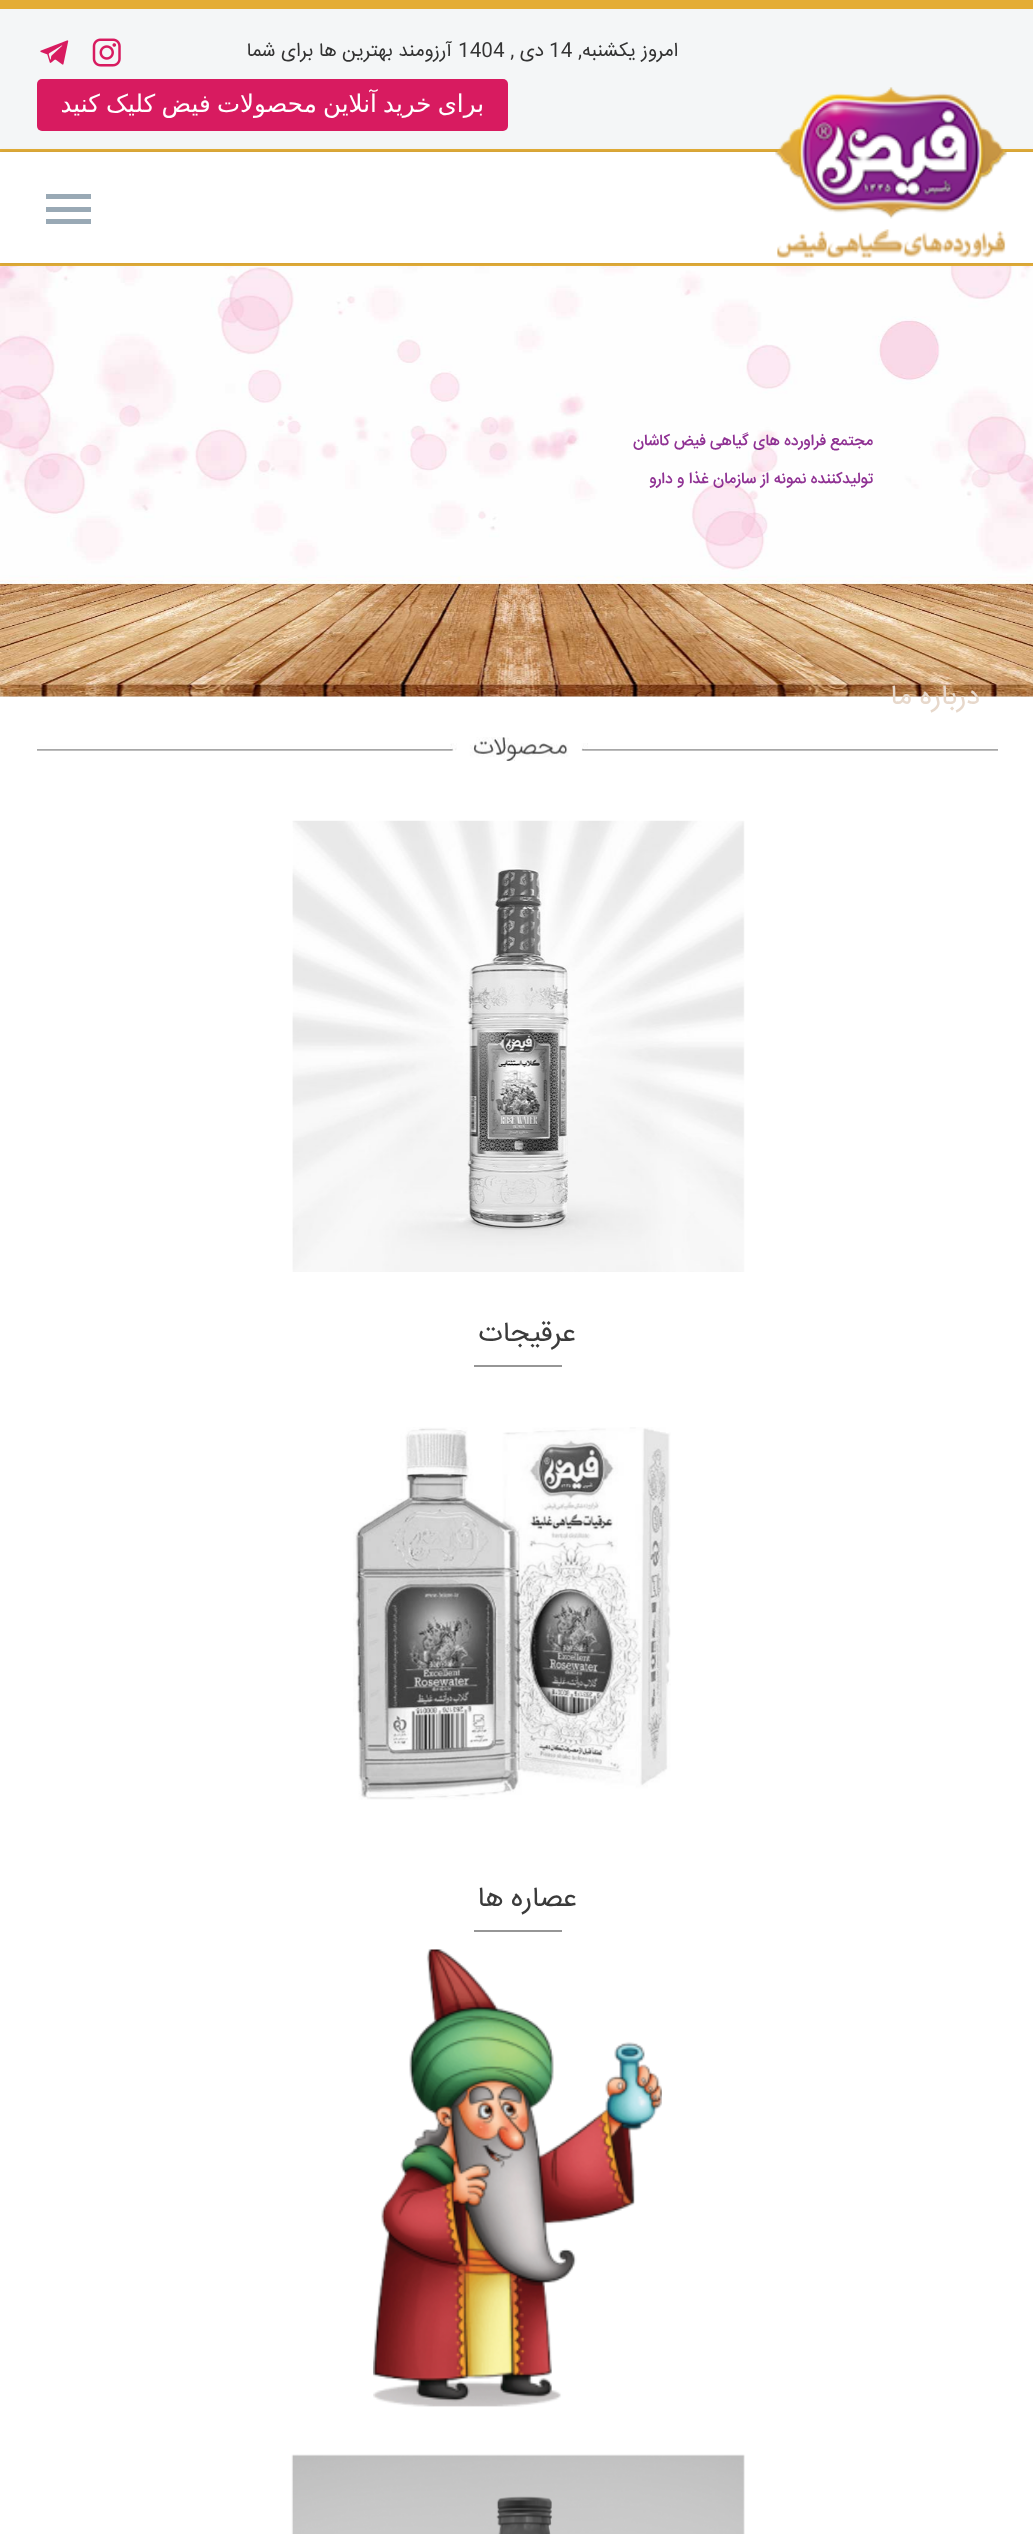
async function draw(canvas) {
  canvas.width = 1033;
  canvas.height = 2534;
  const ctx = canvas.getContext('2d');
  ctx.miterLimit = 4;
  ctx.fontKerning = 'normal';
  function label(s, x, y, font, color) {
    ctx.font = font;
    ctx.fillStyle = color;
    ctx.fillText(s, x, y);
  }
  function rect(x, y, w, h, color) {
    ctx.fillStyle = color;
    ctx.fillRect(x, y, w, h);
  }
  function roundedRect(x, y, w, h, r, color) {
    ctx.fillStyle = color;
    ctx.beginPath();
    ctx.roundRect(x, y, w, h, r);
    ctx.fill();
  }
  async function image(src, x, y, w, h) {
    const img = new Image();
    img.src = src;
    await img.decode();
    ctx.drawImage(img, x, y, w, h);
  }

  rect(0, 0, 1033, 2534, '#e8ecef');
  rect(0, 9, 1033, 140, '#f4f6f7');
  rect(0, 0, 1033, 9, '#e4ad35');
  rect(0, 149, 1033, 3, '#e4ad35');
  ctx.direction = 'rtl';
  label('امروز یکشنبه,', 678, 56, '19.25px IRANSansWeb', '#333');
  ctx.direction = 'ltr';
  label('14', 549, 56, '19.25px IRANSansWeb', '#333');
  ctx.direction = 'rtl';
  label('دی ,', 544, 56, '19.25px IRANSansWeb', '#333');
  ctx.direction = 'ltr';
  label('1404', 458, 56, '19.25px IRANSansWeb', '#333');
  ctx.direction = 'rtl';
  label('آرزومند بهترین ها برای شما', 452, 56, '19.25px IRANSansWeb', '#333');
  await image('assets/img1.png', 92, 38, 29, 29);
  await image('assets/img2.png', 40, 40, 29, 25);
  roundedRect(37, 79, 471, 52, 5, '#d81b60');
  ctx.wordSpacing = '-1.5px';
  label('برای خرید آنلاین محصولات فیض کلیک کنید', 484, 112, '24.5px DejaVu Sans', '#fff');
  rect(0, 263, 1033, 3, '#e4ad35');
  await image('assets/img4.png', 0, 266, 1033, 431);
  ctx.fillStyle = '#38455433';
  ctx.filter = 'blur(2px)';
  ctx.beginPath();
  ctx.rect(0, 152, 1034, 111);
  ctx.fill();
  ctx.filter = 'none';
  rect(0, 152, 1033, 111, '#fff');
  await image('assets/img3.png', 775, 87, 232, 171);
  rect(46, 194, 45, 5, '#99a9b5');
  rect(46, 207, 45, 5, '#99a9b5');
  rect(46, 219, 45, 5, '#99a9b5');
  rect(0, 697, 1033, 1837, '#fff');
  ctx.wordSpacing = '0px';
  label('درباره ما', 980, 704, '28px IRANSansWeb', '#e7d8cb');
  label('مجتمع فراورده های گیاهی فیض کاشان', 873, 445, '500 15.7px IRANSansWeb', '#8f3193');
  label('تولیدکننده نمونه از سازمان غذا و دارو', 873, 483, '500 15.7px IRANSansWeb', '#8f3193');
  await image('assets/img5.png', 37, 737, 961, 24);
  await image('assets/img6.png', 292, 820, 453, 452);
  ctx.letterSpacing = '1.5px';
  label('عرقیجات', 576, 1341, '28px IRANSansWeb', '#3b3b3b');
  rect(474, 1365, 88, 2, '#969696');
  await image('assets/img7.png', 353, 1427, 318, 373);
  ctx.wordSpacing = '-2px';
  label('عصاره ها', 577, 1906, '28px IRANSansWeb', '#3b3b3b');
  rect(474, 1930, 88, 2, '#969696');
  await image('assets/img8.png', 373, 1949, 289, 458);
  await image('assets/img9.png', 291, 2454, 454, 80);
}

draw(document.querySelector('canvas'));
